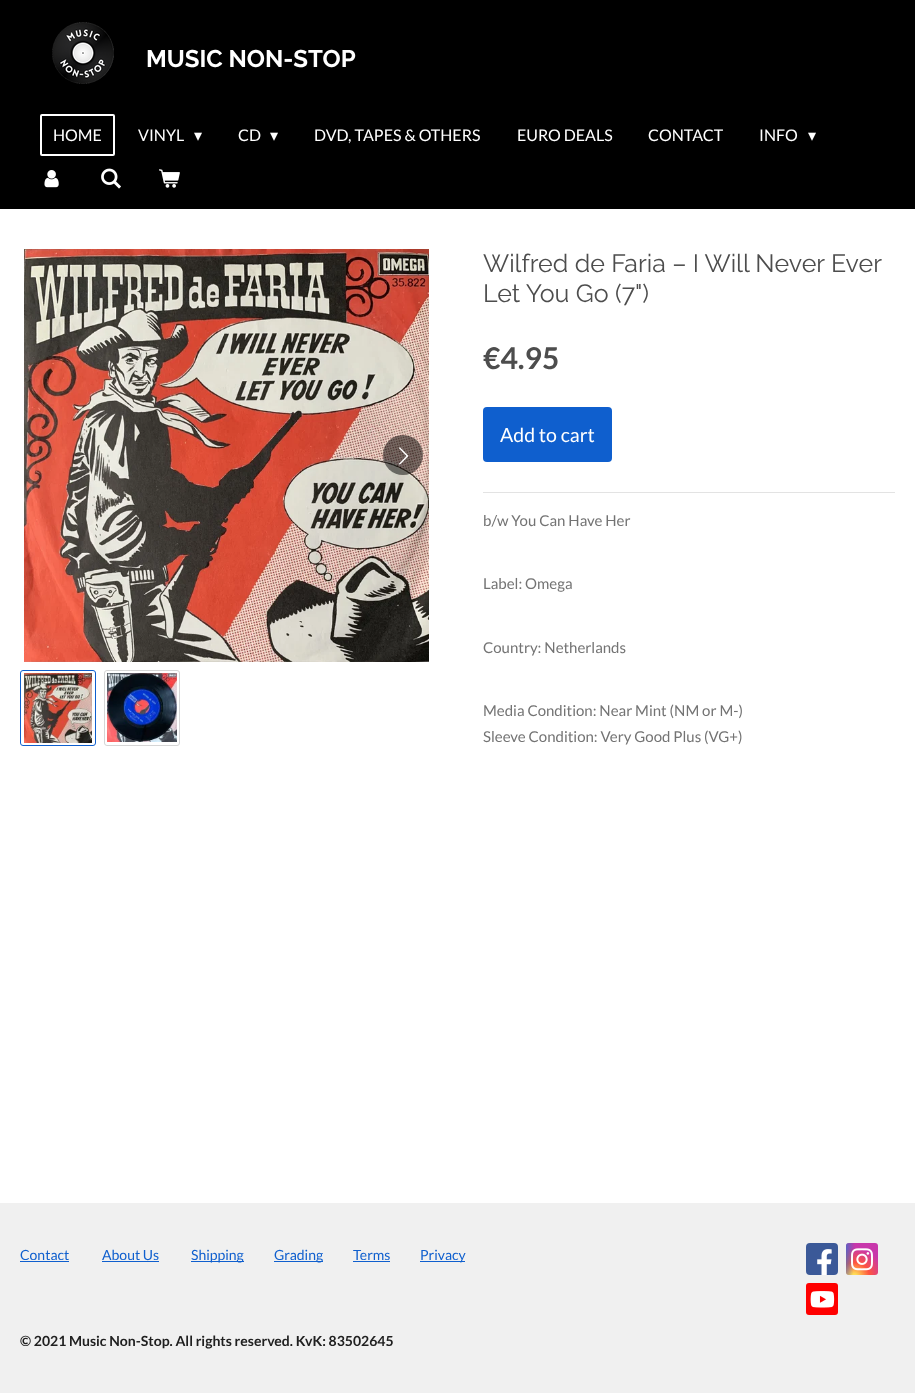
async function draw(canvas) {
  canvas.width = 915;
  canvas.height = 1393;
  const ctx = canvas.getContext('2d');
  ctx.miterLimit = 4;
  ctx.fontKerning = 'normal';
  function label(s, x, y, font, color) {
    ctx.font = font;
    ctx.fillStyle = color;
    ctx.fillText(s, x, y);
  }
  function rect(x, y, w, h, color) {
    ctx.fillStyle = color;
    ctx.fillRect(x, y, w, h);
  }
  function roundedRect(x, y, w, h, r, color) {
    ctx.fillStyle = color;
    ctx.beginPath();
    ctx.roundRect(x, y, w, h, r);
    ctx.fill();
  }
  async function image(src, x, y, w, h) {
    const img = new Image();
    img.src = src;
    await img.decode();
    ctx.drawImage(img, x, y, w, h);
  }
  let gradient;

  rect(0, 0, 915, 1393, '#fff');
  rect(0, 0, 915, 209, '#000');
  await image('assets/img1.png', 52, 22, 62, 62);
  label('MUSIC NON-STOP', 146, 67, 'bold 24px Raleway', '#fff');
  ctx.beginPath();
  ctx.roundRect(41, 115, 73, 40, 1);
  ctx.strokeStyle = '#fff';
  ctx.lineWidth = 2;
  ctx.stroke();
  label('HOME', 53, 141, '16px Lato', '#fff');
  label('VINYL', 138, 141, '16px Lato', '#fff');
  label('▾', 194, 141, '16px DejaVu Sans', '#fff');
  label('CD', 238, 141, '16px Lato', '#fff');
  label('▾', 270, 141, '16px DejaVu Sans', '#fff');
  label('DVD, TAPES & OTHERS', 314, 141, '16px Lato', '#fff');
  label('EURO DEALS', 517, 141, '16px Lato', '#fff');
  label('CONTACT', 648, 141, '16px Lato', '#fff');
  label('INFO', 759, 141, '16px Lato', '#fff');
  label('▾', 808, 141, '16px DejaVu Sans', '#fff');
  await image('assets/img2.png', 44, 170, 15, 18);
  await image('assets/img3.png', 101, 168, 20, 21);
  await image('assets/img4.png', 159, 169, 21, 19);
  await image('assets/img5.png', 24, 249, 405, 413);
  ctx.fillStyle = '#00000080';
  ctx.beginPath();
  ctx.arc(403, 455, 20, 0, 2 * Math.PI);
  ctx.fill();
  await image('assets/img6.png', 399, 447, 10, 18);
  ctx.beginPath();
  ctx.roundRect(20.5, 670.5, 75, 75, 2.5);
  ctx.strokeStyle = '#0f5fce';
  ctx.lineWidth = 1;
  ctx.stroke();
  await image('assets/img7.png', 24, 673, 68, 70);
  ctx.beginPath();
  ctx.roundRect(104.5, 670.5, 75, 75, 2.5);
  ctx.strokeStyle = '#d5d5d5';
  ctx.stroke();
  await image('assets/img8.png', 107, 673, 70, 69);
  label('Wilfred de Faria – I Will Never Ever', 483, 272, '25px Raleway', '#4d4d4d');
  label('Let You Go (7")', 483, 302, '25px Raleway', '#4d4d4d');
  label('€4.95', 483, 369, 'bold 30px Lato', '#4d4d4d');
  roundedRect(483, 407, 129, 55, 4, '#0f5fce');
  label('Add to cart', 500, 442, '19.5px Lato', '#fff');
  rect(483, 492, 412, 1, '#e3e3e3');
  label('b/w You Can Have Her', 483, 526, '15px Lato', '#737373');
  label('Label: Omega', 483, 589, '15px Lato', '#737373');
  label('Country: Netherlands', 483, 653, '15px Lato', '#737373');
  label('Media Condition: Near Mint (NM or M-)', 483, 716, '15px Lato', '#737373');
  label('Sleeve Condition: Very Good Plus (VG+)', 483, 742, '15px Lato', '#737373');
  rect(0, 1203, 915, 190, '#f0f0f0');
  label('Contact', 20, 1260, '14px Lato', '#0f5fce');
  rect(20, 1261, 49, 1, '#0f5fce');
  label('About Us', 102, 1260, '14px Lato', '#0f5fce');
  rect(102, 1261, 57, 1, '#0f5fce');
  rect(191, 1261, 53, 1, '#0f5fce');
  label('Shipping', 191, 1260, '14px Lato', '#0f5fce');
  rect(274, 1261, 49, 1, '#0f5fce');
  label('Grading', 274, 1260, '14px Lato', '#0f5fce');
  label('Terms', 353, 1260, '14px Lato', '#0f5fce');
  rect(353, 1261, 37, 1, '#0f5fce');
  rect(420, 1261, 45, 1, '#0f5fce');
  label('Privacy', 420, 1260, '14px Lato', '#0f5fce');
  roundedRect(806, 1243, 32, 32, 4, '#3b5998');
  await image('assets/img9.png', 817, 1249, 15, 26);
  gradient = ctx.createRadialGradient(854, 1365.07, 0, 854, 1365.07, 31);
  gradient.addColorStop(0, '#fd5');
  gradient.addColorStop(0.1, '#fd5');
  gradient.addColorStop(0.5, '#ff543e');
  gradient.addColorStop(1, '#c837ab');
  ctx.fillStyle = gradient;
  ctx.beginPath();
  ctx.roundRect(846, 1243, 32, 32, 3);
  ctx.save();
  ctx.clip();
  ctx.scale(1, 29 / 31);
  ctx.fillRect(0, 0, 915, 1490);
  ctx.restore();
  gradient = ctx.createRadialGradient(841, 300.52, 0, 841, 300.52, 14);
  gradient.addColorStop(0, '#3771c8');
  gradient.addColorStop(0.13, '#3771c8');
  gradient.addColorStop(1, '#3771c800');
  ctx.fillStyle = gradient;
  ctx.beginPath();
  ctx.roundRect(846, 1243, 32, 32, 3);
  ctx.save();
  ctx.clip();
  ctx.scale(1, 58 / 14);
  ctx.fillRect(0, 0, 915, 337);
  ctx.restore();
  await image('assets/img10.png', 851, 1248, 22, 23);
  roundedRect(806, 1283, 32, 32, 3, '#f00');
  await image('assets/img11.png', 810, 1291, 25, 17);
  label('© 2021 Music Non-Stop. All rights reserved. KvK: 83502645', 20, 1346, 'bold 14px Lato', '#202020');
}

draw(document.querySelector('canvas'));
